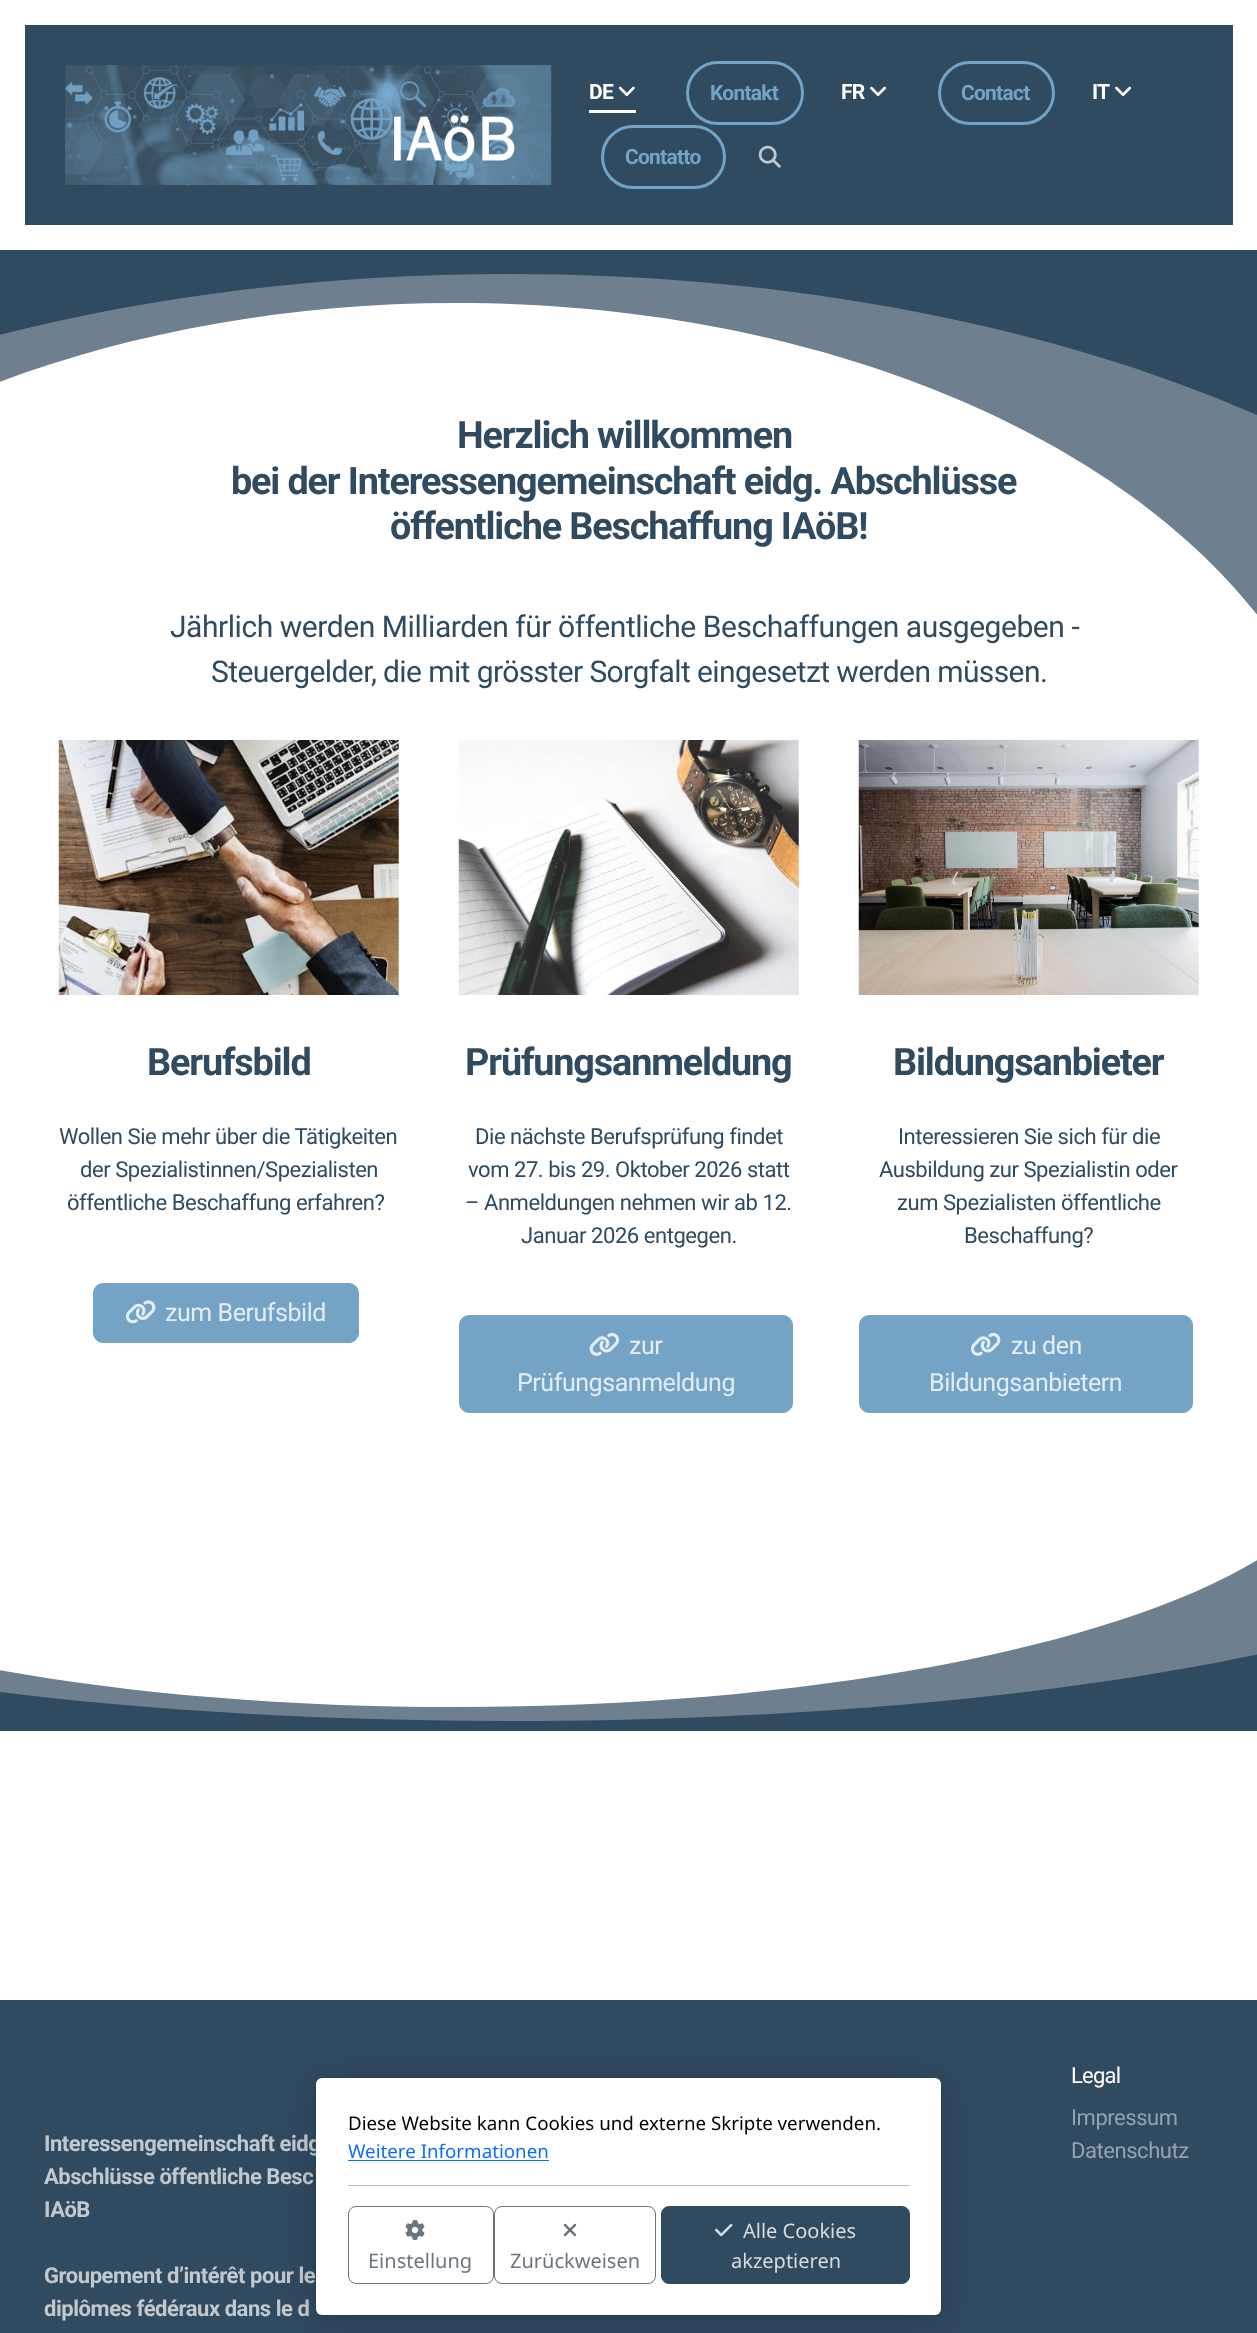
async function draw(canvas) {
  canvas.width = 1257;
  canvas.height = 2333;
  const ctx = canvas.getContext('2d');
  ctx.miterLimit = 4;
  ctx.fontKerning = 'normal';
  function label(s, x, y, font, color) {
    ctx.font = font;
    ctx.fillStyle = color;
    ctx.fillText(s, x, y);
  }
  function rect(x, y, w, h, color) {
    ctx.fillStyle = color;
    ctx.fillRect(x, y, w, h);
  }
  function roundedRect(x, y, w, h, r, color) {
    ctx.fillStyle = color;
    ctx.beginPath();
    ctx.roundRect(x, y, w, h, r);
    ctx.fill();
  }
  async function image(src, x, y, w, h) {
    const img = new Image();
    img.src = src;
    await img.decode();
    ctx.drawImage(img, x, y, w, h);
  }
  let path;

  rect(0, 0, 1257, 2333, '#fff');
  rect(25, 25, 1208, 200, '#304a60');
  await image('assets/img1.png', 65, 65, 487, 120);
  rect(589, 110, 47, 3, '#fff');
  ctx.letterSpacing = '-0.75px';
  label('DE', 589, 99, 'bold 21px Roboto', '#fff');
  await image('assets/img2.png', 618, 86, 17, 10);
  ctx.beginPath();
  ctx.roundRect(687.5, 62.5, 115, 61, 30.5);
  ctx.strokeStyle = '#74a3c6';
  ctx.lineWidth = 3;
  ctx.stroke();
  label('Kontakt', 710, 100, 'bold 21px Roboto', '#74a3c6');
  label('FR', 841, 99, 'bold 21px Roboto', '#fff');
  await image('assets/img3.png', 870, 86, 16, 10);
  ctx.beginPath();
  ctx.roundRect(939.5, 62.5, 114, 61, 30.5);
  ctx.stroke();
  label('Contact', 961, 100, 'bold 21px Roboto', '#74a3c6');
  label('IT', 1092, 99, 'bold 21px Roboto', '#fff');
  await image('assets/img3.png', 1115, 86, 16, 10);
  ctx.beginPath();
  ctx.roundRect(602.5, 126.5, 122, 61, 30.5);
  ctx.stroke();
  label('Contatto', 625, 164, 'bold 21px Roboto', '#74a3c6');
  await image('assets/img4.png', 758, 145, 23, 23);
  ctx.save();
  ctx.beginPath();
  ctx.rect(0, 250, 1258, 455);
  ctx.clip();
  ctx.fillStyle = '#6e8090';
  path = new Path2D('M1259 220H-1V382C133 332 289 303 456 303C809 303 1115 431 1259 617Z');
  ctx.fill(path);
  ctx.fillStyle = '#304a60';
  path = new Path2D('M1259 249H-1V335C152 296 325 274 509 274C797 274 1060 328 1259 416Z');
  ctx.fill(path);
  ctx.restore();
  ctx.letterSpacing = '-1.15px';
  label('Herzlich willkommen', 457, 448, 'bold 37.8px Roboto', '#304a60');
  label('bei der Interessengemeinschaft eidg. Abschlüsse', 231, 494, 'bold 37.8px Roboto', '#304a60');
  label('öffentliche Beschaffung IAöB!', 390, 539, 'bold 37.8px Roboto', '#304a60');
  ctx.letterSpacing = '-0.45px';
  label('Jährlich werden Milliarden für öffentliche Beschaffungen ausgegeben -', 170, 637, '30px Roboto', '#304a60');
  ctx.letterSpacing = '-0.6px';
  label('Steuergelder, die mit grösster Sorgfalt eingesetzt werden müssen.', 211, 682, '30px Roboto', '#304a60');
  await image('assets/img5.png', 58, 740, 341, 255);
  ctx.letterSpacing = '-1.15px';
  label('Berufsbild', 147, 1075, 'bold 37.8px Roboto', '#304a60');
  ctx.letterSpacing = '-0.45px';
  label('Wollen Sie mehr über die Tätigkeiten', 59, 1144, '22px Roboto', '#304a60');
  label('der Spezialistinnen/Spezialisten', 80, 1177, '22px Roboto', '#304a60');
  label('öffentliche Beschaffung erfahren?', 67, 1210, '22px Roboto', '#304a60');
  ctx.fillStyle = '#74a3c6';
  ctx.beginPath();
  ctx.roundRect(93.5, 1283.5, 265, 59, 9.5);
  ctx.fill();
  ctx.lineWidth = 1;
  ctx.stroke();
  await image('assets/img6.png', 125, 1300, 31, 24);
  label('zum Berufsbild', 165, 1321, '25px Roboto', '#e3edf4');
  await image('assets/img7.png', 458, 740, 341, 255);
  ctx.letterSpacing = '-1.15px';
  label('Prüfungsanmeldung', 465, 1075, 'bold 37.8px Roboto', '#304a60');
  ctx.letterSpacing = '-0.45px';
  label('Die nächste Berufsprüfung findet', 475, 1144, '22px Roboto', '#304a60');
  label('vom 27. bis 29. Oktober 2026 statt', 468, 1177, '22px Roboto', '#304a60');
  label('– Anmeldungen nehmen wir ab 12.', 465, 1210, '22px Roboto', '#304a60');
  label('Januar 2026 entgegen.', 521, 1243, '22px Roboto', '#304a60');
  ctx.fillStyle = '#74a3c6';
  ctx.beginPath();
  ctx.roundRect(459.5, 1315.5, 333, 97, 9.5);
  ctx.fill();
  ctx.stroke();
  await image('assets/img8.png', 589, 1332, 31, 24);
  label('zur', 629, 1354, '25px Roboto', '#e3edf4');
  label('Prüfungsanmeldung', 517, 1391, '25px Roboto', '#e3edf4');
  await image('assets/img9.png', 858, 740, 341, 255);
  ctx.letterSpacing = '-1.15px';
  label('Bildungsanbieter', 893, 1075, 'bold 37.8px Roboto', '#304a60');
  ctx.letterSpacing = '-0.45px';
  label('Interessieren Sie sich für die', 898, 1144, '22px Roboto', '#304a60');
  label('Ausbildung zur Spezialistin oder', 879, 1177, '22px Roboto', '#304a60');
  label('zum Spezialisten öffentliche', 897, 1210, '22px Roboto', '#304a60');
  label('Beschaffung?', 964, 1243, '22px Roboto', '#304a60');
  ctx.fillStyle = '#74a3c6';
  ctx.beginPath();
  ctx.roundRect(859.5, 1315.5, 333, 97, 9.5);
  ctx.fill();
  ctx.stroke();
  await image('assets/img10.png', 970, 1332, 31, 24);
  label('zu den', 1011, 1354, '25px Roboto', '#e3edf4');
  label('Bildungsanbietern', 929, 1391, '25px Roboto', '#e3edf4');
  ctx.save();
  ctx.beginPath();
  ctx.rect(0, 1518, 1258, 213);
  ctx.clip();
  ctx.fillStyle = '#6e8090';
  path = new Path2D('M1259 1747H-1V1670C133 1694 289 1707 456 1707C809 1707 1115 1647 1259 1559Z');
  ctx.fill(path);
  ctx.fillStyle = '#304a60';
  path = new Path2D('M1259 1733H-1V1692C152 1711 325 1721 509 1721C797 1721 1060 1696 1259 1654Z');
  ctx.fill(path);
  ctx.restore();
  rect(0, 2000, 1257, 333, '#304a60');
  ctx.letterSpacing = '-0.75px';
  label('Legal', 1071, 2083, '22px Roboto', '#fff');
  ctx.letterSpacing = '-0.45px';
  label('Impressum', 1071, 2125, '22px Roboto', '#96a3ae');
  label('Datenschutz', 1071, 2158, '22px Roboto', '#96a3ae');
  label('Interessengemeinschaft eidg', 44, 2151, 'bold 22px Roboto', '#c1c9cf');
  label('Abschlüsse öffentliche Besc', 44, 2184, 'bold 22px Roboto', '#c1c9cf');
  label('IAöB', 44, 2217, 'bold 22px Roboto', '#c1c9cf');
  label('Groupement d’intérêt pour le', 44, 2283, 'bold 22px Roboto', '#c1c9cf');
  label('diplômes fédéraux dans le d', 44, 2316, 'bold 22px Roboto', '#c1c9cf');
  ctx.fillStyle = '#00000029';
  ctx.filter = 'blur(19px)';
  ctx.beginPath();
  ctx.roundRect(316, 2084, 625, 237, 6);
  ctx.fill();
  ctx.filter = 'none';
  ctx.fillStyle = '#0000001a';
  ctx.filter = 'blur(2px)';
  ctx.beginPath();
  ctx.roundRect(316, 2079, 625, 237, 6);
  ctx.fill();
  ctx.filter = 'none';
  roundedRect(316, 2078, 625, 237, 6, '#fff');
  ctx.letterSpacing = '0px';
  label('Diese Website kann Cookies und externe Skripte verwenden.', 348, 2130, '18.75px Noto Sans', '#000');
  label('Weitere Informationen', 348, 2158, '18.75px Noto Sans', '#0d6efd');
  rect(348, 2160, 201, 1, '#0d6efd');
  rect(348, 2185, 562, 1, '#bfbfbf');
  ctx.beginPath();
  ctx.roundRect(348.5, 2206.5, 145, 77, 7.5);
  ctx.strokeStyle = '#6c757d';
  ctx.stroke();
  await image('assets/img11.png', 405, 2220, 20, 20);
  label('Einstellung', 368, 2268, '20px Noto Sans', '#6c757d');
  ctx.beginPath();
  ctx.roundRect(494.5, 2206.5, 161, 77, 7.5);
  ctx.stroke();
  await image('assets/img12.png', 563, 2223, 14, 14);
  label('Zurückweisen', 510, 2268, '20px Noto Sans', '#6c757d');
  ctx.fillStyle = '#304a60';
  ctx.beginPath();
  ctx.roundRect(661.5, 2206.5, 248, 77, 7.5);
  ctx.fill();
  ctx.strokeStyle = '#304a60';
  ctx.stroke();
  await image('assets/img13.png', 715, 2223, 18, 14);
  label('Alle Cookies', 743, 2238, '20px Noto Sans', '#d6dbdf');
  label('akzeptieren', 731, 2268, '20px Noto Sans', '#d6dbdf');
}

draw(document.querySelector('canvas'));
